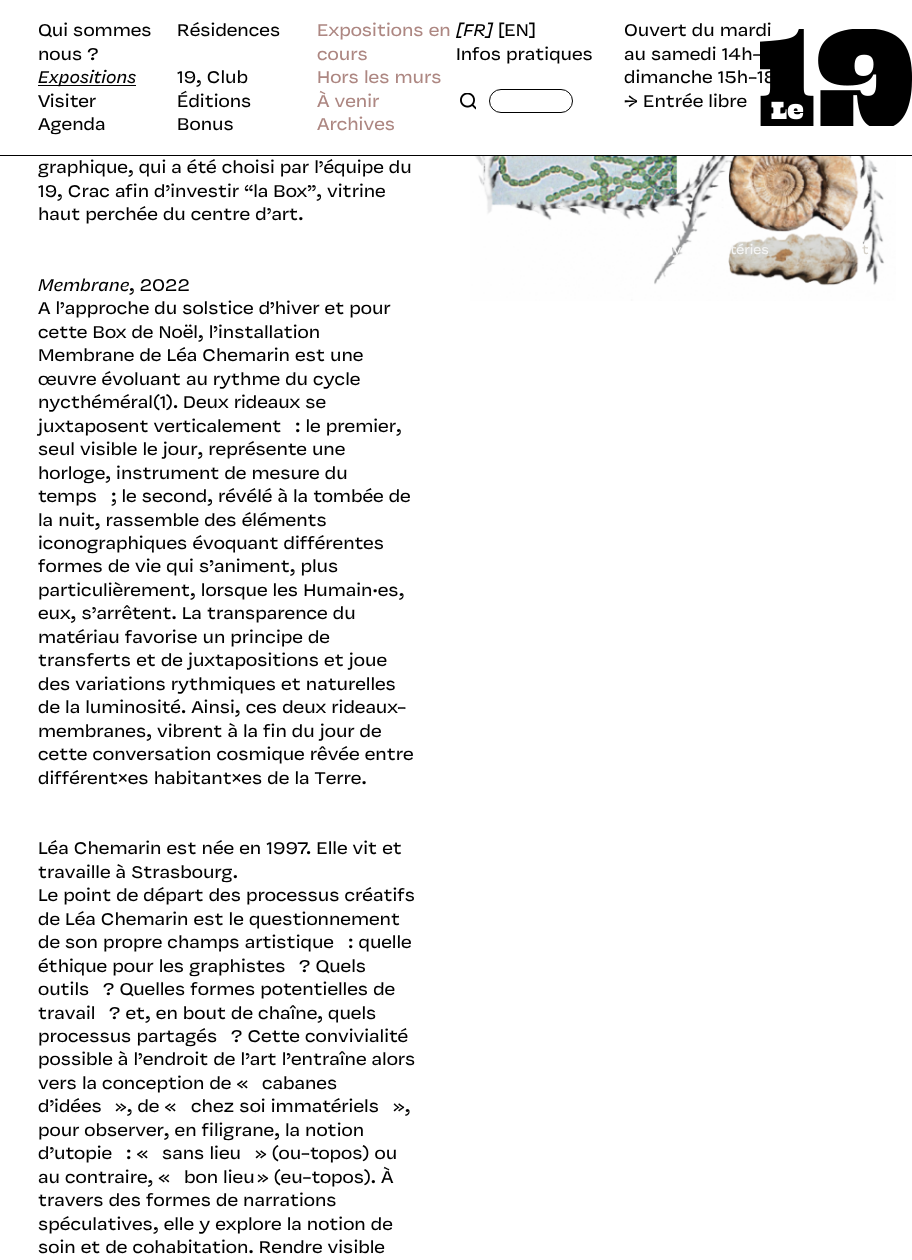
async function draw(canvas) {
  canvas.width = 912;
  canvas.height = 1260;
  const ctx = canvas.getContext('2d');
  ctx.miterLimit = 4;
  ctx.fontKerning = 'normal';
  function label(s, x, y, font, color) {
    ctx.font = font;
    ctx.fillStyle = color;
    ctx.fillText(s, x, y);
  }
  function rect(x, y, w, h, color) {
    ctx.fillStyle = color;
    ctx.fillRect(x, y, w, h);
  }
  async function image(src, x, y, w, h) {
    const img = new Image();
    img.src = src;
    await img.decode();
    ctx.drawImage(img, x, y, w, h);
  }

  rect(0, 0, 912, 1260, '#fff');
  rect(0, 155, 912, 1, '#000');
  label('Qui sommes', 38, 36, '18.75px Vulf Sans', '#000');
  label('nous ?', 38, 60, '18.75px Vulf Sans', '#000');
  label('Résidences', 177, 36, '18.75px Vulf Sans', '#000');
  rect(38, 85, 98, 1, '#000');
  label('Expositions', 38, 83, 'italic 18.75px Vulf Sans', '#000');
  label('19, Club', 177, 83, '18.75px Vulf Sans', '#000');
  label('Visiter', 38, 107, '18.75px Vulf Sans', '#000');
  label('Éditions', 177, 107, '18.75px Vulf Sans', '#000');
  label('Agenda', 38, 130, '18.75px Vulf Sans', '#000');
  label('Bonus', 177, 130, '18.75px Vulf Sans', '#000');
  label('Expositions en', 317, 36, '18.75px Vulf Sans', '#ad8782');
  label('cours', 317, 60, '18.75px Vulf Sans', '#ad8782');
  label('Hors les murs', 317, 83, '18.75px Vulf Sans', '#ad8782');
  label('À venir', 317, 107, '18.75px Vulf Sans', '#ad8782');
  label('Archives', 317, 130, '18.75px Vulf Sans', '#ad8782');
  label('[FR]', 456, 36, 'italic 18.75px Vulf Sans', '#000');
  label('[EN]', 498, 36, '18.75px Vulf Sans', '#000');
  label('Infos pratiques', 456, 60, '18.75px Vulf Sans', '#000');
  await image('assets/img1.png', 460, 93, 16, 17);
  ctx.beginPath();
  ctx.roundRect(489.5, 89.5, 83, 23, 11.5);
  ctx.strokeStyle = '#000';
  ctx.stroke();
  label('Ouvert du mardi', 624, 36, '18.75px Vulf Sans', '#000');
  label('au samedi 14h-', 624, 60, '18.75px Vulf Sans', '#000');
  label('dimanche 15h-18', 624, 83, '18.75px Vulf Sans', '#000');
  label('→ Entrée libre', 624, 107, '18.75px Vulf Sans', '#000');
  await image('assets/img2.png', 760, 29, 152, 97);
  label('graphique, qui a été choisi par l’équipe du', 38, 173, '18.75px Vulf Sans', '#000');
  label('19, Crac afin d’investir “la Box”, vitrine', 38, 197, '18.75px Vulf Sans', '#000');
  label('haut perchée du centre d’art.', 38, 220, '18.75px Vulf Sans', '#000');
  label('Membrane', 38, 291, 'italic 18.75px Vulf Sans', '#000');
  label(', 2022', 129, 291, '18.75px Vulf Sans', '#000');
  label('A l’approche du solstice d’hiver et pour', 38, 314, '18.75px Vulf Sans', '#000');
  label('cette Box de Noël, l’installation', 38, 338, '18.75px Vulf Sans', '#000');
  label('Membrane de Léa Chemarin est une', 38, 361, '18.75px Vulf Sans', '#000');
  label('œuvre évoluant au rythme du cycle', 38, 385, '18.75px Vulf Sans', '#000');
  label('nycthéméral(1). Deux rideaux se', 38, 408, '18.75px Vulf Sans', '#000');
  label('juxtaposent verticalement', 38, 432, '18.75px Vulf Sans', '#000');
  label(': le premier,', 295, 432, '18.75px Vulf Sans', '#000');
  label('seul visible le jour, représente une', 38, 455, '18.75px Vulf Sans', '#000');
  label('horloge, instrument de mesure du', 38, 479, '18.75px Vulf Sans', '#000');
  label('temps', 38, 502, '18.75px Vulf Sans', '#000');
  label('; le second, révélé à la tombée de', 111, 502, '18.75px Vulf Sans', '#000');
  label('la nuit, rassemble des éléments', 38, 526, '18.75px Vulf Sans', '#000');
  label('iconographiques évoquant différentes', 38, 549, '18.75px Vulf Sans', '#000');
  label('formes de vie qui s’animent, plus', 38, 572, '18.75px Vulf Sans', '#000');
  label('particulièrement, lorsque les Humain·es,', 38, 596, '18.75px Vulf Sans', '#000');
  label('eux, s’arrêtent. La transparence du', 38, 619, '18.75px Vulf Sans', '#000');
  label('matériau favorise un principe de', 38, 643, '18.75px Vulf Sans', '#000');
  label('transferts et de juxtapositions et joue', 38, 666, '18.75px Vulf Sans', '#000');
  label('des variations rythmiques et naturelles', 38, 690, '18.75px Vulf Sans', '#000');
  label('de la luminosité. Ainsi, ces deux rideaux-', 38, 713, '18.75px Vulf Sans', '#000');
  label('membranes, vibrent à la fin du jour de', 38, 737, '18.75px Vulf Sans', '#000');
  label('cette conversation cosmique rêvée entre', 38, 760, '18.75px Vulf Sans', '#000');
  label('différent×es habitant×es de la Terre.', 38, 784, '18.75px Vulf Sans', '#000');
  label('Léa Chemarin est née en 1997. Elle vit et', 38, 854, '18.75px Vulf Sans', '#000');
  label('travaille à Strasbourg.', 38, 878, '18.75px Vulf Sans', '#000');
  label('Le point de départ des processus créatifs', 38, 901, '18.75px Vulf Sans', '#000');
  label('de Léa Chemarin est le questionnement', 38, 925, '18.75px Vulf Sans', '#000');
  label('de son propre champs artistique', 38, 948, '18.75px Vulf Sans', '#000');
  label(': quelle', 348, 948, '18.75px Vulf Sans', '#000');
  label('éthique pour les graphistes', 38, 972, '18.75px Vulf Sans', '#000');
  label('? Quels', 299, 972, '18.75px Vulf Sans', '#000');
  label('outils', 38, 995, '18.75px Vulf Sans', '#000');
  label('? Quelles formes potentielles de', 103, 995, '18.75px Vulf Sans', '#000');
  label('travail', 38, 1019, '18.75px Vulf Sans', '#000');
  label('? et, en bout de chaîne, quels', 109, 1019, '18.75px Vulf Sans', '#000');
  label('processus partagés', 38, 1042, '18.75px Vulf Sans', '#000');
  label('? Cette convivialité', 231, 1042, '18.75px Vulf Sans', '#000');
  label('possible à l’endroit de l’art l’entraîne alors', 38, 1065, '18.75px Vulf Sans', '#000');
  label('vers la conception de «', 38, 1089, '18.75px Vulf Sans', '#000');
  label('cabanes', 262, 1089, '18.75px Vulf Sans', '#000');
  label('d’idées', 38, 1112, '18.75px Vulf Sans', '#000');
  label('», de «', 115, 1112, '18.75px Vulf Sans', '#000');
  label('chez soi immatériels', 191, 1112, '18.75px Vulf Sans', '#000');
  label('»,', 393, 1112, '18.75px Vulf Sans', '#000');
  label('pour observer, en filigrane, la notion', 38, 1136, '18.75px Vulf Sans', '#000');
  label('d’utopie', 38, 1159, '18.75px Vulf Sans', '#000');
  label(': «', 126, 1159, '18.75px Vulf Sans', '#000');
  label('sans lieu', 162, 1159, '18.75px Vulf Sans', '#000');
  label('» (ou-topos) ou', 255, 1159, '18.75px Vulf Sans', '#000');
  label('au contraire, «', 38, 1183, '18.75px Vulf Sans', '#000');
  label('bon lieu » (eu-topos). À', 184, 1183, '18.75px Vulf Sans', '#000');
  label('travers des formes de narrations', 38, 1206, '18.75px Vulf Sans', '#000');
  label('spéculatives, elle y explore la notion de', 38, 1230, '18.75px Vulf Sans', '#000');
  label('soin et de cohabitation. Rendre visible', 38, 1253, '18.75px Vulf Sans', '#000');
  await image('assets/img3.png', 470, 156, 426, 145);
  label('y', 673, 254, '14px Vulf Sans', '#f5f5f4');
  label('téries', 730, 254, '14px Vulf Sans', '#f5f5f4');
  label('t', 862, 254, '14px Vulf Sans', '#d4d0c8');
}

draw(document.querySelector('canvas'));
